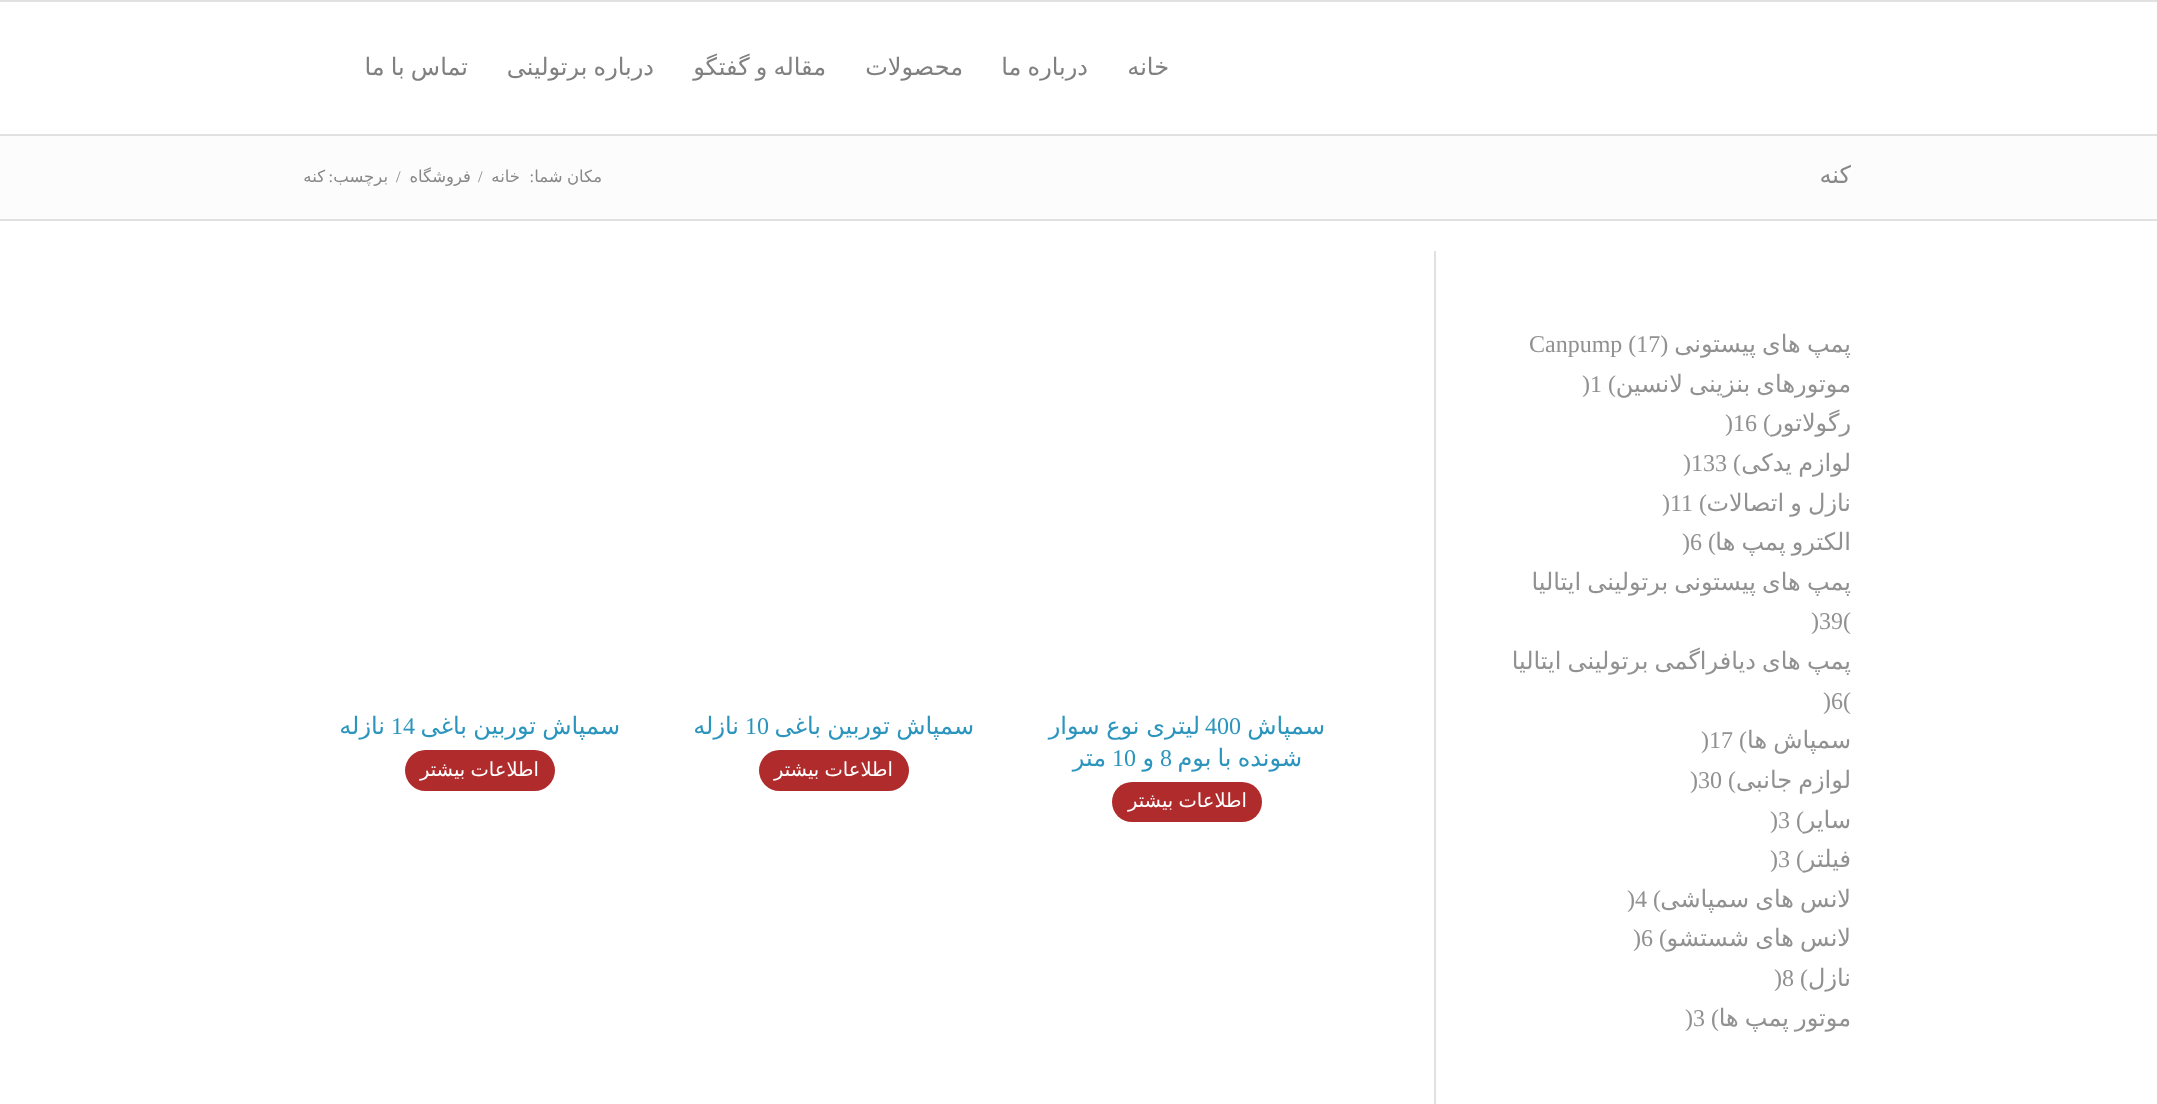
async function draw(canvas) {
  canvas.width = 2157;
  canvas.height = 1104;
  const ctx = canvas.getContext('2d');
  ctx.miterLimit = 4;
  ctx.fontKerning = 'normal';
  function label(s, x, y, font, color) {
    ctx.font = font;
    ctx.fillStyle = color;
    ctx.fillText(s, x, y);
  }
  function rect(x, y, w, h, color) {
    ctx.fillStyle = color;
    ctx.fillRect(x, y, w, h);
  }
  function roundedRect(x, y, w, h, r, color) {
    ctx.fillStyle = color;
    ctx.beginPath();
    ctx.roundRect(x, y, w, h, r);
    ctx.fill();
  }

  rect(0, 0, 2157, 1104, '#fff');
  rect(0, 0, 2157, 2, '#e1e1e1');
  rect(0, 134, 2157, 2, '#e1e1e1');
  ctx.direction = 'rtl';
  label('خانه', 1169, 75, '24px DejaVu Sans', '#808080');
  ctx.wordSpacing = '-1.5px';
  label('درباره ما', 1088, 75, '24px DejaVu Sans', '#808080');
  ctx.wordSpacing = '0px';
  label('محصولات', 963, 75, '24px DejaVu Sans', '#808080');
  ctx.wordSpacing = '-1.5px';
  label('مقاله و گفتگو', 826, 75, '24px DejaVu Sans', '#808080');
  label('درباره برتولینی', 654, 75, '24px DejaVu Sans', '#808080');
  label('تماس با ما', 468, 75, '24px DejaVu Sans', '#808080');
  rect(0, 136, 2157, 83, '#fcfcfc');
  ctx.wordSpacing = '0px';
  label('کنه', 1851, 183, '24px DejaVu Sans', '#888');
  ctx.wordSpacing = '-1px';
  label('مکان شما', 602, 182, '16.5px DejaVu Sans', '#888');
  ctx.wordSpacing = '0px';
  label(':', 534, 182, '16.5px Liberation Serif', '#888');
  label('خانه', 520, 182, '16.5px DejaVu Sans', '#888');
  ctx.direction = 'ltr';
  label('/', 478, 182, '16.5px Liberation Serif', '#888');
  ctx.direction = 'rtl';
  label('فروشگاه', 471, 182, '16.5px DejaVu Sans', '#888');
  ctx.direction = 'ltr';
  label('/', 396, 182, '16.5px Liberation Serif', '#888');
  ctx.direction = 'rtl';
  label('برچسب', 388, 182, '16.5px DejaVu Sans', '#888');
  label(':', 333, 182, '16.5px Liberation Serif', '#888');
  label('کنه', 325, 182, '16.5px DejaVu Sans', '#888');
  rect(0, 219, 2157, 2, '#e1e1e1');
  ctx.wordSpacing = '-1.5px';
  label('پمپ های پیستونی', 1851, 352, '24px DejaVu Sans', '#919191');
  ctx.wordSpacing = '0px';
  ctx.direction = 'ltr';
  label('Canpump (17)', 1529, 352, '24px Liberation Serif', '#919191');
  ctx.wordSpacing = '-1.5px';
  ctx.direction = 'rtl';
  label('موتورهای بنزینی لانسین', 1851, 392, '24px DejaVu Sans', '#919191');
  ctx.wordSpacing = '0px';
  ctx.direction = 'ltr';
  label('(', 1608, 392, '24px Liberation Serif', '#919191');
  label('1', 1590, 392, '24px Liberation Serif', '#919191');
  label(')', 1582, 392, '24px Liberation Serif', '#919191');
  ctx.direction = 'rtl';
  label('رگولاتور', 1851, 431, '24px DejaVu Sans', '#919191');
  ctx.direction = 'ltr';
  label('(', 1763, 431, '24px Liberation Serif', '#919191');
  label('16', 1733, 431, '24px Liberation Serif', '#919191');
  label(')', 1725, 431, '24px Liberation Serif', '#919191');
  ctx.wordSpacing = '-1.5px';
  ctx.direction = 'rtl';
  label('لوازم یدکی', 1851, 471, '24px DejaVu Sans', '#919191');
  ctx.wordSpacing = '0px';
  ctx.direction = 'ltr';
  label('(', 1733, 471, '24px Liberation Serif', '#919191');
  label('133', 1691, 471, '24px Liberation Serif', '#919191');
  label(')', 1683, 471, '24px Liberation Serif', '#919191');
  ctx.wordSpacing = '-1.5px';
  ctx.direction = 'rtl';
  label('نازل و اتصالات', 1851, 511, '24px DejaVu Sans', '#919191');
  ctx.wordSpacing = '0px';
  ctx.direction = 'ltr';
  label('(', 1699, 511, '24px Liberation Serif', '#919191');
  label('11', 1670, 511, '24px Liberation Serif', '#919191');
  label(')', 1662, 511, '24px Liberation Serif', '#919191');
  ctx.wordSpacing = '-1.5px';
  ctx.direction = 'rtl';
  label('الکترو پمپ ها', 1851, 550, '24px DejaVu Sans', '#919191');
  ctx.wordSpacing = '0px';
  ctx.direction = 'ltr';
  label('(', 1708, 550, '24px Liberation Serif', '#919191');
  label('6', 1690, 550, '24px Liberation Serif', '#919191');
  label(')', 1682, 550, '24px Liberation Serif', '#919191');
  ctx.wordSpacing = '-1.5px';
  ctx.direction = 'rtl';
  label('پمپ های پیستونی برتولینی ایتالیا', 1851, 590, '24px DejaVu Sans', '#919191');
  ctx.wordSpacing = '0px';
  ctx.direction = 'ltr';
  label('(', 1843, 629, '24px Liberation Serif', '#919191');
  label('39', 1819, 629, '24px Liberation Serif', '#919191');
  label(')', 1811, 629, '24px Liberation Serif', '#919191');
  ctx.wordSpacing = '-1.5px';
  ctx.direction = 'rtl';
  label('پمپ های دیافراگمی برتولینی ایتالیا', 1851, 669, '24px DejaVu Sans', '#919191');
  ctx.wordSpacing = '0px';
  ctx.direction = 'ltr';
  label('(', 1843, 709, '24px Liberation Serif', '#919191');
  label('6', 1831, 709, '24px Liberation Serif', '#919191');
  label(')', 1823, 709, '24px Liberation Serif', '#919191');
  ctx.wordSpacing = '-1.5px';
  ctx.direction = 'rtl';
  label('سمپاش ها', 1851, 748, '24px DejaVu Sans', '#919191');
  ctx.wordSpacing = '0px';
  ctx.direction = 'ltr';
  label('(', 1739, 748, '24px Liberation Serif', '#919191');
  label('17', 1709, 748, '24px Liberation Serif', '#919191');
  label(')', 1701, 748, '24px Liberation Serif', '#919191');
  ctx.wordSpacing = '-1.5px';
  ctx.direction = 'rtl';
  label('لوازم جانبی', 1851, 788, '24px DejaVu Sans', '#919191');
  ctx.wordSpacing = '0px';
  ctx.direction = 'ltr';
  label('(', 1728, 788, '24px Liberation Serif', '#919191');
  label('30', 1698, 788, '24px Liberation Serif', '#919191');
  label(')', 1690, 788, '24px Liberation Serif', '#919191');
  ctx.direction = 'rtl';
  label('سایر', 1851, 828, '24px DejaVu Sans', '#919191');
  ctx.direction = 'ltr';
  label('(', 1796, 828, '24px Liberation Serif', '#919191');
  label('3', 1778, 828, '24px Liberation Serif', '#919191');
  label(')', 1770, 828, '24px Liberation Serif', '#919191');
  ctx.direction = 'rtl';
  label('فیلتر', 1851, 867, '24px DejaVu Sans', '#919191');
  ctx.direction = 'ltr';
  label('(', 1796, 867, '24px Liberation Serif', '#919191');
  label('3', 1778, 867, '24px Liberation Serif', '#919191');
  label(')', 1770, 867, '24px Liberation Serif', '#919191');
  ctx.wordSpacing = '-1.5px';
  ctx.direction = 'rtl';
  label('لانس های سمپاشی', 1851, 907, '24px DejaVu Sans', '#919191');
  ctx.wordSpacing = '0px';
  ctx.direction = 'ltr';
  label('(', 1653, 907, '24px Liberation Serif', '#919191');
  label('4', 1635, 907, '24px Liberation Serif', '#919191');
  label(')', 1627, 907, '24px Liberation Serif', '#919191');
  ctx.wordSpacing = '-1.5px';
  ctx.direction = 'rtl';
  label('لانس های شستشو', 1851, 946, '24px DejaVu Sans', '#919191');
  ctx.wordSpacing = '0px';
  ctx.direction = 'ltr';
  label('(', 1659, 946, '24px Liberation Serif', '#919191');
  label('6', 1641, 946, '24px Liberation Serif', '#919191');
  label(')', 1633, 946, '24px Liberation Serif', '#919191');
  ctx.direction = 'rtl';
  label('نازل', 1851, 986, '24px DejaVu Sans', '#919191');
  ctx.direction = 'ltr';
  label('(', 1800, 986, '24px Liberation Serif', '#919191');
  label('8', 1782, 986, '24px Liberation Serif', '#919191');
  label(')', 1774, 986, '24px Liberation Serif', '#919191');
  ctx.wordSpacing = '-1.5px';
  ctx.direction = 'rtl';
  label('موتور پمپ ها', 1851, 1026, '24px DejaVu Sans', '#919191');
  ctx.wordSpacing = '0px';
  ctx.direction = 'ltr';
  label('(', 1711, 1026, '24px Liberation Serif', '#919191');
  label('3', 1693, 1026, '24px Liberation Serif', '#919191');
  label(')', 1685, 1026, '24px Liberation Serif', '#919191');
  rect(1434, 251, 2, 853, '#e1e1e1');
  ctx.direction = 'rtl';
  label('سمپاش', 1325, 734, '24px DejaVu Sans', '#2b95bd');
  ctx.direction = 'ltr';
  label('400', 1205, 734, '24px Liberation Serif', '#2b95bd');
  ctx.wordSpacing = '-1px';
  ctx.direction = 'rtl';
  label('لیتری نوع سوار', 1200, 734, '24px DejaVu Sans', '#2b95bd');
  ctx.wordSpacing = '-1.5px';
  label('شونده با بوم', 1302, 766, '24px DejaVu Sans', '#2b95bd');
  ctx.wordSpacing = '0px';
  ctx.direction = 'ltr';
  label('8', 1160, 766, '24px Liberation Serif', '#2b95bd');
  ctx.direction = 'rtl';
  label('و', 1154, 766, '24px DejaVu Sans', '#2b95bd');
  ctx.direction = 'ltr';
  label('10', 1112, 766, '24px Liberation Serif', '#2b95bd');
  ctx.direction = 'rtl';
  label('متر', 1106, 766, '24px DejaVu Sans', '#2b95bd');
  roundedRect(1112, 782, 150, 40, 20, '#b02b2c');
  ctx.wordSpacing = '-1px';
  label('اطلاعات بیشتر', 1247, 807, '19.5px DejaVu Sans', '#fff');
  ctx.wordSpacing = '-1.5px';
  label('سمپاش توربین باغی', 974, 734, '24px DejaVu Sans', '#2b95bd');
  ctx.wordSpacing = '0px';
  ctx.direction = 'ltr';
  label('10', 745, 734, '24px Liberation Serif', '#2b95bd');
  ctx.direction = 'rtl';
  label('نازله', 739, 734, '24px DejaVu Sans', '#2b95bd');
  roundedRect(759, 750, 150, 41, 20.5, '#b02b2c');
  ctx.wordSpacing = '-1px';
  label('اطلاعات بیشتر', 893, 776, '19.5px DejaVu Sans', '#fff');
  ctx.wordSpacing = '-1.5px';
  label('سمپاش توربین باغی', 620, 734, '24px DejaVu Sans', '#2b95bd');
  ctx.wordSpacing = '0px';
  ctx.direction = 'ltr';
  label('14', 391, 734, '24px Liberation Serif', '#2b95bd');
  ctx.direction = 'rtl';
  label('نازله', 385, 734, '24px DejaVu Sans', '#2b95bd');
  roundedRect(405, 750, 150, 41, 20.5, '#b02b2c');
  ctx.wordSpacing = '-1px';
  label('اطلاعات بیشتر', 539, 776, '19.5px DejaVu Sans', '#fff');
}

draw(document.querySelector('canvas'));
